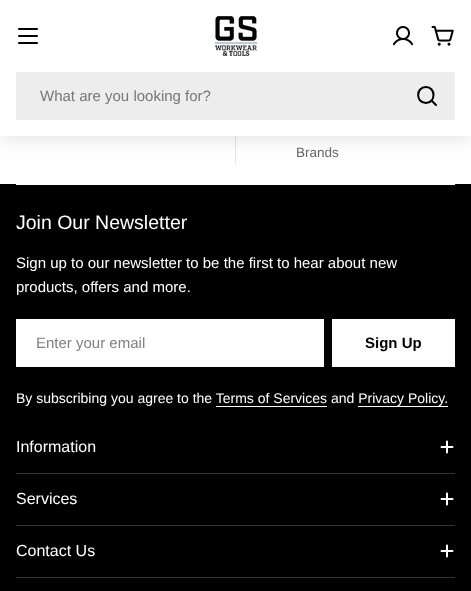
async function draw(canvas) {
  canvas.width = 471;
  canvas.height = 591;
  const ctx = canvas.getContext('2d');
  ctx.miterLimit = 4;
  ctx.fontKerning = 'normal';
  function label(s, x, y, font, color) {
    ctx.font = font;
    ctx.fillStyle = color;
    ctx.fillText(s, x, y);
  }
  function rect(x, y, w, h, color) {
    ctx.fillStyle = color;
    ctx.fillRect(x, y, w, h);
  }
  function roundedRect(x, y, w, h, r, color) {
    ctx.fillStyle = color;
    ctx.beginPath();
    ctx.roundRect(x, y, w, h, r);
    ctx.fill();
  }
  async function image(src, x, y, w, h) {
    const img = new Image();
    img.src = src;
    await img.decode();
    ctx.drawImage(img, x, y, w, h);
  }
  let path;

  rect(0, 0, 471, 591, '#fff');
  rect(235, 136, 1, 28, '#e5e5e5');
  ctx.fillStyle = '#0000001a';
  ctx.filter = 'blur(9px)';
  ctx.beginPath();
  ctx.rect(0, 4, 471, 136);
  ctx.fill();
  ctx.filter = 'none';
  rect(0, 0, 471, 136, '#fff');
  roundedRect(18, 35, 20, 2, 1, '#000');
  roundedRect(18, 28, 20, 2, 1, '#000');
  roundedRect(18, 42, 20, 2, 1, '#000');
  await image('assets/img1.png', 214, 16, 45, 40);
  await image('assets/img2.png', 392, 26, 22, 20);
  await image('assets/img3.png', 431, 26, 23, 20);
  rect(16, 72, 439, 48, '#ededed');
  label('What are you looking for?', 40, 101, '15px Liberation Sans', '#777');
  path = new Path2D('M426 103C436 103 436 87 426 87C415.5 87 415.5 103 426 103ZM431.5 100.5L436 105');
  ctx.strokeStyle = '#000';
  ctx.lineWidth = 2;
  ctx.lineCap = 'round';
  ctx.lineJoin = 'round';
  ctx.stroke(path);
  label('Brands', 296, 157, '13.5px Liberation Sans', '#666');
  rect(0, 184, 471, 407, '#000');
  rect(16, 184, 439, 1, '#fff');
  label('Join Our Newsletter', 16, 229, '19.5px Liberation Sans', '#fff');
  label('Sign up to our newsletter to be the first to hear about new', 16, 268, '15px Liberation Sans', '#fff');
  label('products, offers and more.', 16, 292, '15px Liberation Sans', '#fff');
  rect(16, 319, 308, 48, '#fff');
  label('Enter your email', 36, 348, '15px Liberation Sans', '#808080');
  rect(332, 319, 123, 48, '#fff');
  label('Sign Up', 365, 348, 'bold 15px Liberation Sans', '#000');
  label('By subscribing you agree to the Terms of Services and Privacy Policy.', 16, 403, '14px Liberation Sans', '#fff');
  rect(216, 406, 111, 1, '#fff');
  rect(358, 406, 90, 1, '#fff');
  rect(16, 473, 439, 1, '#333');
  label('Information', 16, 452, '16px Liberation Sans', '#fff');
  path = new Path2D('M441.5 447H452.5M447 441.5V452.5');
  ctx.strokeStyle = '#fff';
  ctx.stroke(path);
  rect(16, 525, 439, 1, '#333');
  label('Services', 16, 504, '16px Liberation Sans', '#fff');
  path = new Path2D('M441.5 499H452.5M447 493.5V504.5');
  ctx.stroke(path);
  rect(16, 577, 439, 1, '#333');
  label('Contact Us', 16, 556, '16px Liberation Sans', '#fff');
  path = new Path2D('M441.5 551H452.5M447 545.5V556.5');
  ctx.stroke(path);
}

draw(document.querySelector('canvas'));
